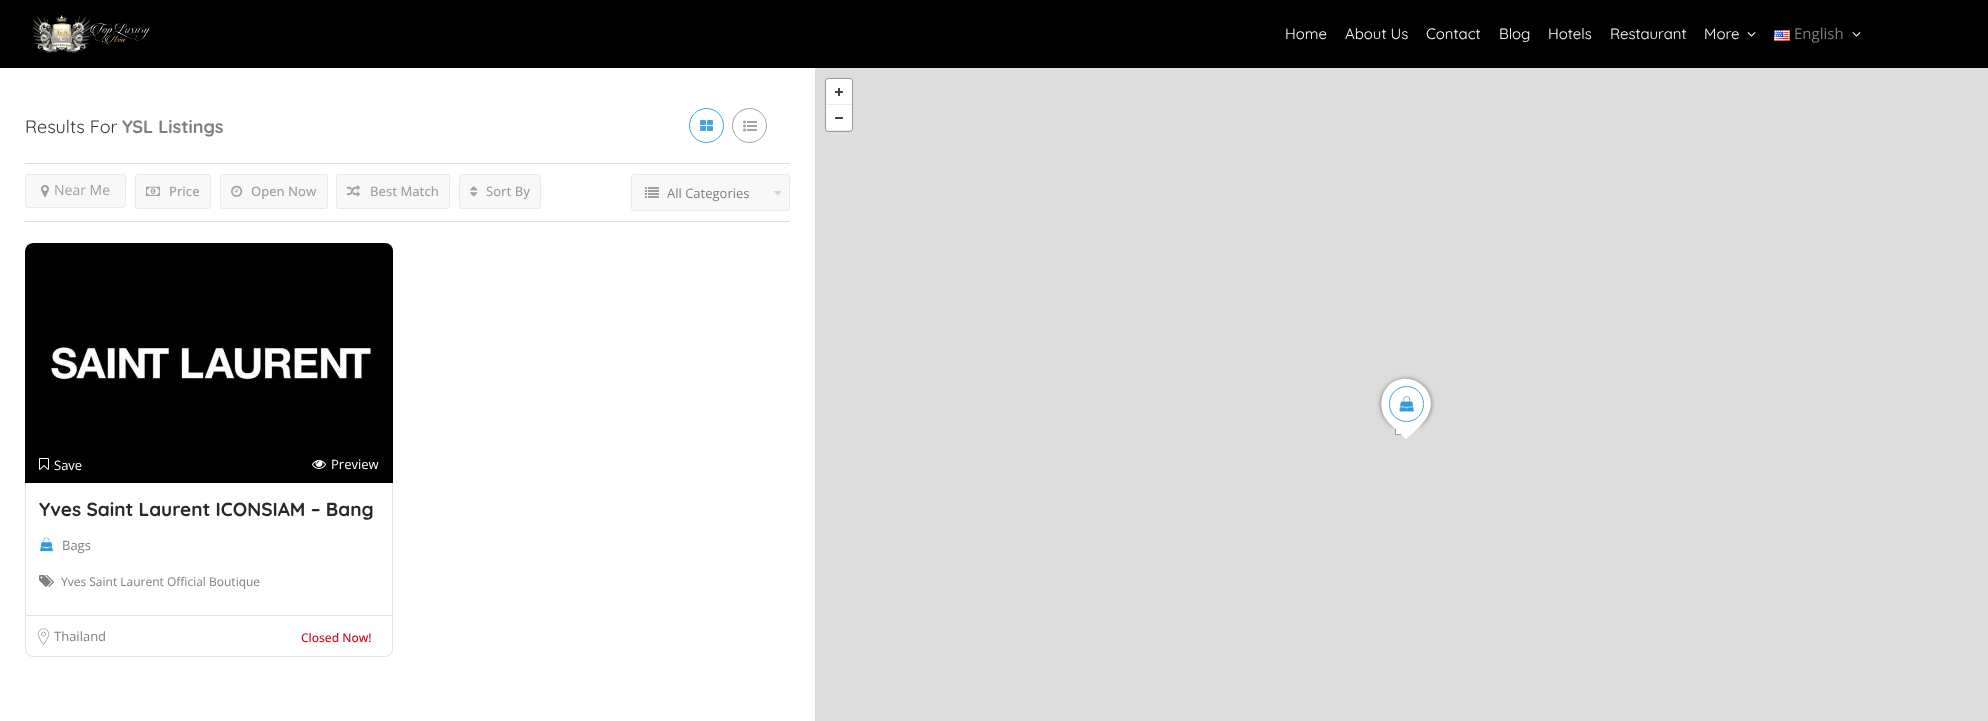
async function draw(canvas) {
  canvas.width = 1988;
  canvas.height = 721;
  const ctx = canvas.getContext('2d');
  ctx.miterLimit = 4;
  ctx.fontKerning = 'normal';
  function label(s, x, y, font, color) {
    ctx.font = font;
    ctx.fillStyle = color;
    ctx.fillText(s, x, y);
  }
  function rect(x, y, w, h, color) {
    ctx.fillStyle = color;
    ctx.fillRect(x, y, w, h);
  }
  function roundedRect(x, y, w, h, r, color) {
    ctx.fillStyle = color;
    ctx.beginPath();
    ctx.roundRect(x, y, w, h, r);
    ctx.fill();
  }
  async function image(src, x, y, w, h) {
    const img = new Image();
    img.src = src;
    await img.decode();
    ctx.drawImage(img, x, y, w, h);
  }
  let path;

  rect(0, 0, 1988, 721, '#fff');
  rect(0, 0, 1988, 68, '#000');
  await image('assets/img1.png', 32, 15, 118, 38);
  label('Home', 1285, 39, '15px Quicksand', '#fff');
  label('About Us', 1345, 39, '15px Quicksand', '#fff');
  label('Contact', 1426, 39, '15px Quicksand', '#fff');
  label('Blog', 1499, 39, '15px Quicksand', '#fff');
  label('Hotels', 1548, 39, '15px Quicksand', '#fff');
  label('Restaurant', 1610, 39, '15px Quicksand', '#fff');
  label('More', 1704, 39, '15px Quicksand', '#fff');
  await image('assets/img2.png', 1747, 32, 9, 5);
  await image('assets/img3.png', 1774, 30, 16, 11);
  label('English', 1794, 39, '15px Open Sans', '#7f7f7f');
  await image('assets/img2.png', 1852, 32, 9, 5);
  label('Results For', 25, 133, '18px Quicksand', '#333');
  label('YSL Listings', 122, 133, 'bold 18px Quicksand', '#7f7f7f');
  ctx.beginPath();
  ctx.arc(706.5, 125.5, 17, 0, 2 * Math.PI);
  ctx.strokeStyle = '#41a6df';
  ctx.stroke();
  await image('assets/img4.png', 700, 120, 13, 11);
  ctx.beginPath();
  ctx.arc(749.5, 125.5, 17, 0, 2 * Math.PI);
  ctx.strokeStyle = '#a3a3a3';
  ctx.stroke();
  await image('assets/img5.png', 743, 120, 14, 12);
  rect(25, 163, 765, 1, '#dedede');
  rect(25, 221, 765, 1, '#dedede');
  ctx.fillStyle = '#f8f8f8';
  ctx.beginPath();
  ctx.roundRect(25.5, 174.5, 100, 33, 2.5);
  ctx.fill();
  ctx.strokeStyle = '#eaeaea';
  ctx.stroke();
  await image('assets/img6.png', 41, 185, 8, 12);
  label('Near Me', 54, 195, '14px Open Sans', '#9f9f9f');
  ctx.fillStyle = '#f8f8f8';
  ctx.beginPath();
  ctx.roundRect(135.5, 174.5, 75, 34, 2.5);
  ctx.fill();
  ctx.stroke();
  await image('assets/img7.png', 146, 186, 14, 10);
  label('Price', 169, 196, '500 13px Open Sans', '#9f9f9f');
  ctx.fillStyle = '#f8f8f8';
  ctx.beginPath();
  ctx.roundRect(220.5, 174.5, 107, 34, 2.5);
  ctx.fill();
  ctx.stroke();
  await image('assets/img8.png', 231, 185, 12, 12);
  label('Open Now', 251, 196, '500 13px Open Sans', '#9f9f9f');
  ctx.fillStyle = '#f8f8f8';
  ctx.beginPath();
  ctx.roundRect(336.5, 174.5, 113, 34, 2.5);
  ctx.fill();
  ctx.stroke();
  await image('assets/img9.png', 347, 185, 13, 12);
  label('Best Match', 370, 196, '500 13px Open Sans', '#9f9f9f');
  ctx.fillStyle = '#f8f8f8';
  ctx.beginPath();
  ctx.roundRect(459.5, 174.5, 81, 34, 2.5);
  ctx.fill();
  ctx.stroke();
  await image('assets/img10.png', 470, 186, 8, 11);
  label('Sort By', 486, 196, '500 13px Open Sans', '#9f9f9f');
  ctx.fillStyle = '#f8f8f8';
  ctx.beginPath();
  ctx.roundRect(631.5, 174.5, 158, 36, 2.5);
  ctx.fill();
  ctx.stroke();
  rect(632, 175, 1, 35, '#f8f8f8');
  await image('assets/img11.png', 645, 187, 14, 11);
  label('All Categories', 667, 198, '13px Open Sans', '#7f7f7f');
  await image('assets/img12.png', 774, 191, 7, 4);
  ctx.beginPath();
  ctx.roundRect(25.5, 243.5, 367, 413, 7.5);
  ctx.strokeStyle = '#e3e3e3';
  ctx.stroke();
  await image('assets/img13.png', 25, 243, 368, 240);
  await image('assets/img14.png', 39, 458, 10, 12);
  label('Save', 54, 470, '13px Open Sans', '#fff');
  await image('assets/img15.png', 312, 460, 14, 9);
  label('Preview', 331, 469, '13px Open Sans', '#fff');
  label('Yves Saint Laurent ICONSIAM – Bang', 39, 516, 'bold 19px Quicksand', '#292929');
  await image('assets/img16.png', 40, 537, 13, 15);
  label('Bags', 62, 550, '13px Open Sans', '#7f7f7f');
  await image('assets/img17.png', 39, 575, 15, 12);
  label('Yves Saint Laurent Official Boutique', 61, 586, '12px Open Sans', '#7f7f7f');
  rect(26, 615, 366, 1, '#dedede');
  await image('assets/img18.png', 37, 628, 13, 17);
  label('Thailand', 54, 641, '13px Open Sans', '#7f7f7f');
  label('Closed Now!', 301, 642, '500 12px Open Sans', '#d0021b');
  rect(815, 68, 1173, 653, '#ddd');
  roundedRect(825, 78, 28, 54, 3, '#fff');
  ctx.beginPath();
  ctx.roundRect(825.5, 78.5, 27, 53, 2.5);
  ctx.strokeStyle = '#00000066';
  ctx.stroke();
  await image('assets/img19.png', 835, 88, 8, 8);
  rect(826, 104, 26, 1, '#ececec');
  await image('assets/img20.png', 835, 117, 8, 2);
  rect(826, 130, 26, 1, '#00000014');
  rect(1396, 429, 5, 5, '#fff');
  ctx.strokeStyle = '#999';
  ctx.strokeRect(1395.5, 423.5, 11, 11);
  ctx.fillStyle = '#00000078';
  ctx.filter = 'blur(2.5px)';
  ctx.beginPath();
  ctx.roundRect(1381, 379, 50, 50, 25);
  ctx.fill();
  ctx.filter = 'none';
  ctx.fillStyle = '#fff';
  path = new Path2D('M1388 386C1407 367 1439 388 1429 413C1426 422 1413 433 1406 439L1388 422C1379 412 1379 396 1388 386Z');
  ctx.fill(path);
  ctx.beginPath();
  ctx.roundRect(1389.5, 386.5, 34, 35, 17);
  ctx.strokeStyle = '#41a6df';
  ctx.stroke();
  await image('assets/img21.png', 1399, 396, 15, 16);
}

draw(document.querySelector('canvas'));
